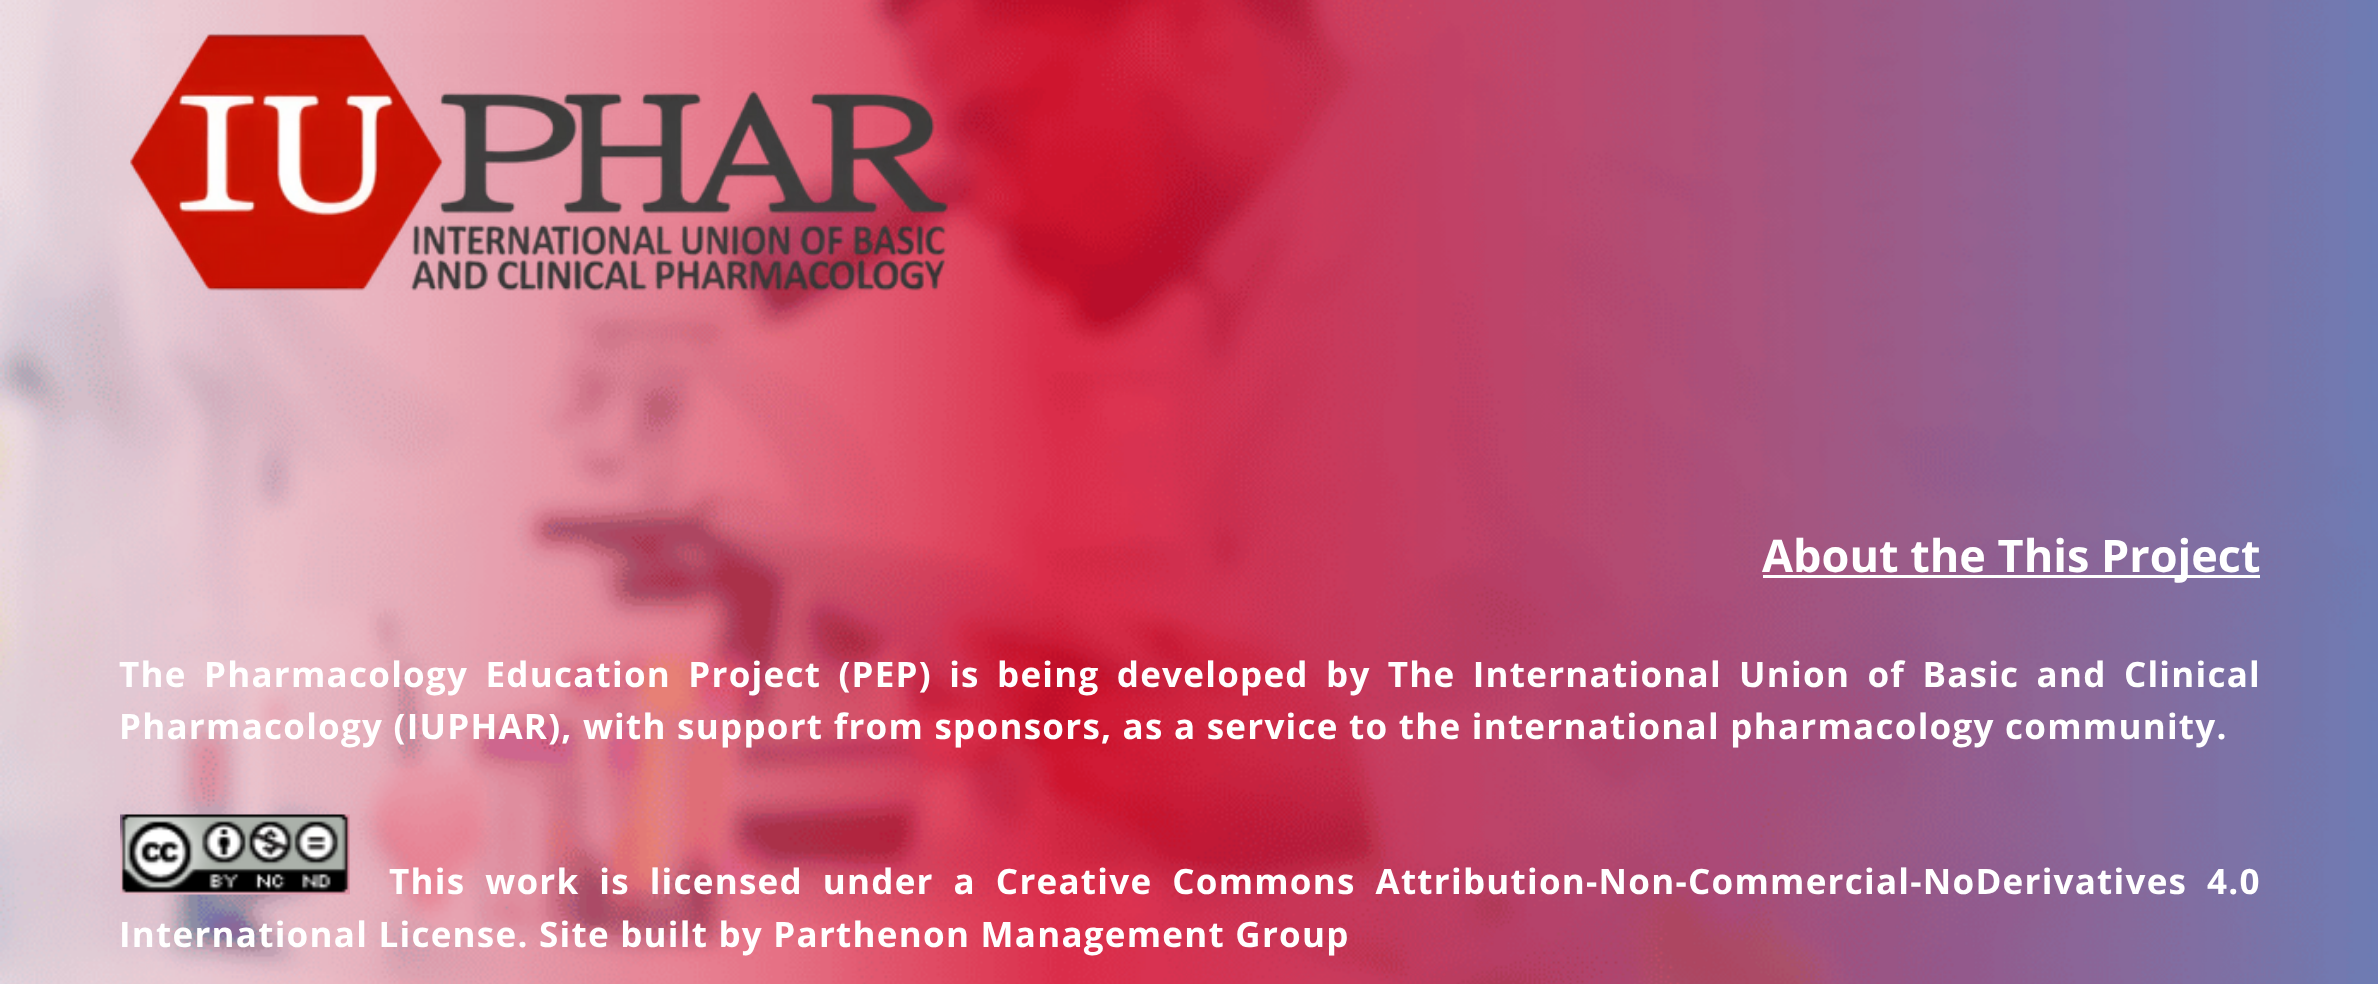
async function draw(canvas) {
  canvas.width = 2378;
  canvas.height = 984;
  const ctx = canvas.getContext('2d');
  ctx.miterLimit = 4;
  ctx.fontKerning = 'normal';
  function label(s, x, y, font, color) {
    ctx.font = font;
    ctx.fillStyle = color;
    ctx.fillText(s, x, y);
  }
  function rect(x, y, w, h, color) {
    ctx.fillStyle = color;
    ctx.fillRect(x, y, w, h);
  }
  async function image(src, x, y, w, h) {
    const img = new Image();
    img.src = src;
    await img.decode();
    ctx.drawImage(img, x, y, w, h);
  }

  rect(0, 0, 2378, 984, '#fff');
  await image('assets/img1.png', 0, 0, 2378, 984);
  await image('assets/img2.png', 130, 33, 818, 258);
  rect(1763, 575, 497, 3, '#fff');
  label('About the This Project', 1762, 572, 'bold 45px Open Sans', '#fff');
  ctx.letterSpacing = '1.25px';
  ctx.wordSpacing = '6.9px';
  label('The Pharmacology Education Project (PEP) is being developed by The International Union of Basic and Clinical', 119, 687, 'bold 35px Open Sans', '#fff');
  ctx.wordSpacing = '0px';
  label('Pharmacology (IUPHAR), with support from sponsors, as a service to the international pharmacology community.', 119, 739, 'bold 35px Open Sans', '#fff');
  await image('assets/img3.png', 120, 814, 230, 81);
  ctx.wordSpacing = '9.5px';
  label('This work is licensed under a Creative Commons Attribution-Non-Commercial-NoDerivatives 4.0', 389, 894, 'bold 35px Open Sans', '#fff');
  ctx.wordSpacing = '0px';
  label('International License. Site built by Parthenon Management Group', 119, 947, 'bold 35px Open Sans', '#fff');
}

draw(document.querySelector('canvas'));
